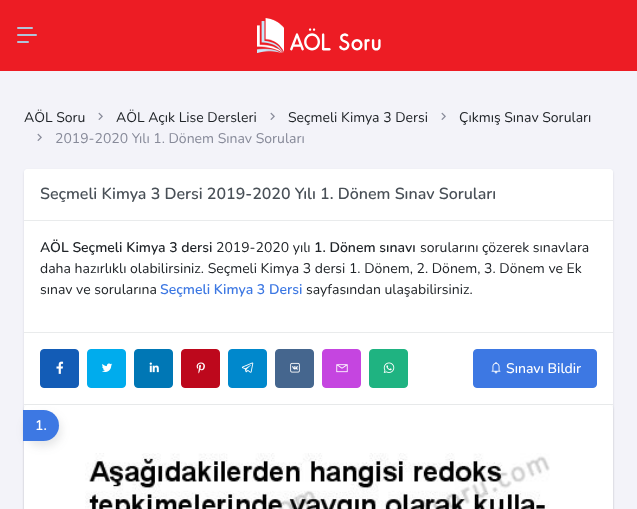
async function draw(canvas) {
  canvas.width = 637;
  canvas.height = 509;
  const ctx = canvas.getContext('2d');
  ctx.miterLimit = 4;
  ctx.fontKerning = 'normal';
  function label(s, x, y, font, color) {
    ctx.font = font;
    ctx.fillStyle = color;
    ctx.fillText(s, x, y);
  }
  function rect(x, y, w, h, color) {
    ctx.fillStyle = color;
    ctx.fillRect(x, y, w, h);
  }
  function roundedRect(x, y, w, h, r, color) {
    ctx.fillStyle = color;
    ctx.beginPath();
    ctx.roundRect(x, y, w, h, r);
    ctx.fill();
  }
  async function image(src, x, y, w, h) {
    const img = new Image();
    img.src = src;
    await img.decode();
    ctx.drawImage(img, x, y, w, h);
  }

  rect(0, 0, 637, 509, '#f3f3f9');
  rect(0, 0, 637, 71, '#ed1c24');
  roundedRect(17, 27, 16, 2, 1, '#b0c4d9');
  roundedRect(17, 34, 20, 2, 1, '#b0c4d9');
  roundedRect(17, 41, 12, 2, 1, '#b0c4d9');
  await image('assets/img1.png', 257, 18, 124, 35);
  label('AÖL Soru', 24, 122, '14px Nunito', '#212529');
  await image('assets/img2.png', 98, 112, 5, 8);
  label('AÖL Açık Lise Dersleri', 116, 122, '14px Nunito', '#212529');
  await image('assets/img2.png', 270, 112, 5, 8);
  label('Seçmeli Kimya 3 Dersi', 288, 122, '14px Nunito', '#212529');
  await image('assets/img2.png', 441, 112, 5, 8);
  label('Çıkmış Sınav Soruları', 459, 122, '14px Nunito', '#212529');
  await image('assets/img2.png', 37, 133, 5, 8);
  label('2019-2020 Yılı 1. Dönem Sınav Soruları', 55, 143, '14px Nunito', '#878a99');
  ctx.fillStyle = '#38414a26';
  ctx.filter = 'blur(1px)';
  ctx.beginPath();
  ctx.roundRect(24, 170, 589, 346, 4);
  ctx.fill();
  ctx.filter = 'none';
  roundedRect(24, 169, 589, 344, 4, '#fff');
  ctx.beginPath();
  ctx.roundRect(24, 169, 589, 52, [4, 4, 0, 0]);
  ctx.fill();
  rect(24, 220, 589, 1, '#e9ebec');
  label('Seçmeli Kimya 3 Dersi 2019-2020 Yılı 1. Dönem Sınav Soruları', 40, 199, '600 16px Nunito', '#495057');
  label('AÖL Seçmeli Kimya 3 dersi', 40, 252, '600 14px Nunito', '#212529');
  label('2019-2020 yılı', 216, 252, '14px Nunito', '#212529');
  label('1. Dönem sınavı', 314, 252, '600 14px Nunito', '#212529');
  label('sorularını çözerek sınavlara', 420, 252, '14px Nunito', '#212529');
  label('daha hazırlıklı olabilirsiniz. Seçmeli Kimya 3 dersi 1. Dönem, 2. Dönem, 3. Dönem ve Ek', 40, 273, '14px Nunito', '#212529');
  label('sınav ve sorularına', 40, 294, '14px Nunito', '#212529');
  label('Seçmeli Kimya 3 Dersi', 160, 294, '600 14px Nunito', '#3d78e3');
  label('sayfasından ulaşabilirsiniz.', 306, 294, '14px Nunito', '#212529');
  rect(24, 332, 589, 1, '#e9ebec');
  rect(24, 404, 589, 1, '#e9ebec');
  ctx.fillStyle = '#135cb6';
  ctx.beginPath();
  ctx.roundRect(40.5, 349.5, 38, 38, 3.5);
  ctx.fill();
  ctx.strokeStyle = '#135cb6';
  ctx.stroke();
  await image('assets/img3.png', 56, 361, 8, 13);
  ctx.fillStyle = '#00aced';
  ctx.beginPath();
  ctx.roundRect(87.5, 349.5, 38, 38, 3.5);
  ctx.fill();
  ctx.strokeStyle = '#00aced';
  ctx.stroke();
  await image('assets/img4.png', 102, 363, 11, 9);
  ctx.fillStyle = '#0077b5';
  ctx.beginPath();
  ctx.roundRect(134.5, 349.5, 38, 38, 3.5);
  ctx.fill();
  ctx.strokeStyle = '#0077b5';
  ctx.stroke();
  await image('assets/img5.png', 149, 362, 10, 11);
  ctx.fillStyle = '#bd081c';
  ctx.beginPath();
  ctx.roundRect(181.5, 349.5, 38, 38, 3.5);
  ctx.fill();
  ctx.strokeStyle = '#bd081c';
  ctx.stroke();
  await image('assets/img6.png', 196, 362, 9, 12);
  ctx.fillStyle = '#08c';
  ctx.beginPath();
  ctx.roundRect(228.5, 349.5, 38, 38, 3.5);
  ctx.fill();
  ctx.strokeStyle = '#08c';
  ctx.stroke();
  await image('assets/img7.png', 241, 362, 13, 11);
  ctx.fillStyle = '#45668e';
  ctx.beginPath();
  ctx.roundRect(275.5, 349.5, 38, 38, 3.5);
  ctx.fill();
  ctx.strokeStyle = '#45668e';
  ctx.stroke();
  await image('assets/img8.png', 290, 362, 10, 11);
  ctx.fillStyle = '#c545e0';
  ctx.beginPath();
  ctx.roundRect(322.5, 349.5, 38, 38, 3.5);
  ctx.fill();
  ctx.strokeStyle = '#c545e0';
  ctx.stroke();
  await image('assets/img9.png', 336, 364, 12, 9);
  ctx.fillStyle = '#1fb381';
  ctx.beginPath();
  ctx.roundRect(369.5, 349.5, 38, 38, 3.5);
  ctx.fill();
  ctx.strokeStyle = '#1fb381';
  ctx.stroke();
  await image('assets/img10.png', 383, 362, 12, 11);
  ctx.fillStyle = '#3d78e3';
  ctx.beginPath();
  ctx.roundRect(473.5, 349.5, 123, 38, 3.5);
  ctx.fill();
  ctx.strokeStyle = '#3d78e3';
  ctx.stroke();
  await image('assets/img11.png', 491, 362, 10, 12);
  label('Sınavı Bildir', 506, 373, '500 14px Nunito', '#fff');
  ctx.fillStyle = '#38414a26';
  ctx.filter = 'blur(1px)';
  ctx.beginPath();
  ctx.roundRect(24, 406, 589, 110, 4);
  ctx.fill();
  ctx.filter = 'none';
  roundedRect(24, 405, 589, 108, 4, '#fff');
  ctx.fillStyle = '#49505726';
  ctx.filter = 'blur(5px)';
  ctx.beginPath();
  ctx.roundRect(25, 415, 36, 31, 15.5);
  ctx.fill();
  ctx.filter = 'none';
  ctx.fillStyle = '#3d78e3';
  ctx.beginPath();
  ctx.roundRect(23, 410, 36, 31, [0, 15.5, 15.5, 0]);
  ctx.fill();
  label('1.', 35, 430, '600 14px Nunito', '#fff');
  await image('assets/img12.png', 85, 453, 465, 56);
}

draw(document.querySelector('canvas'));
